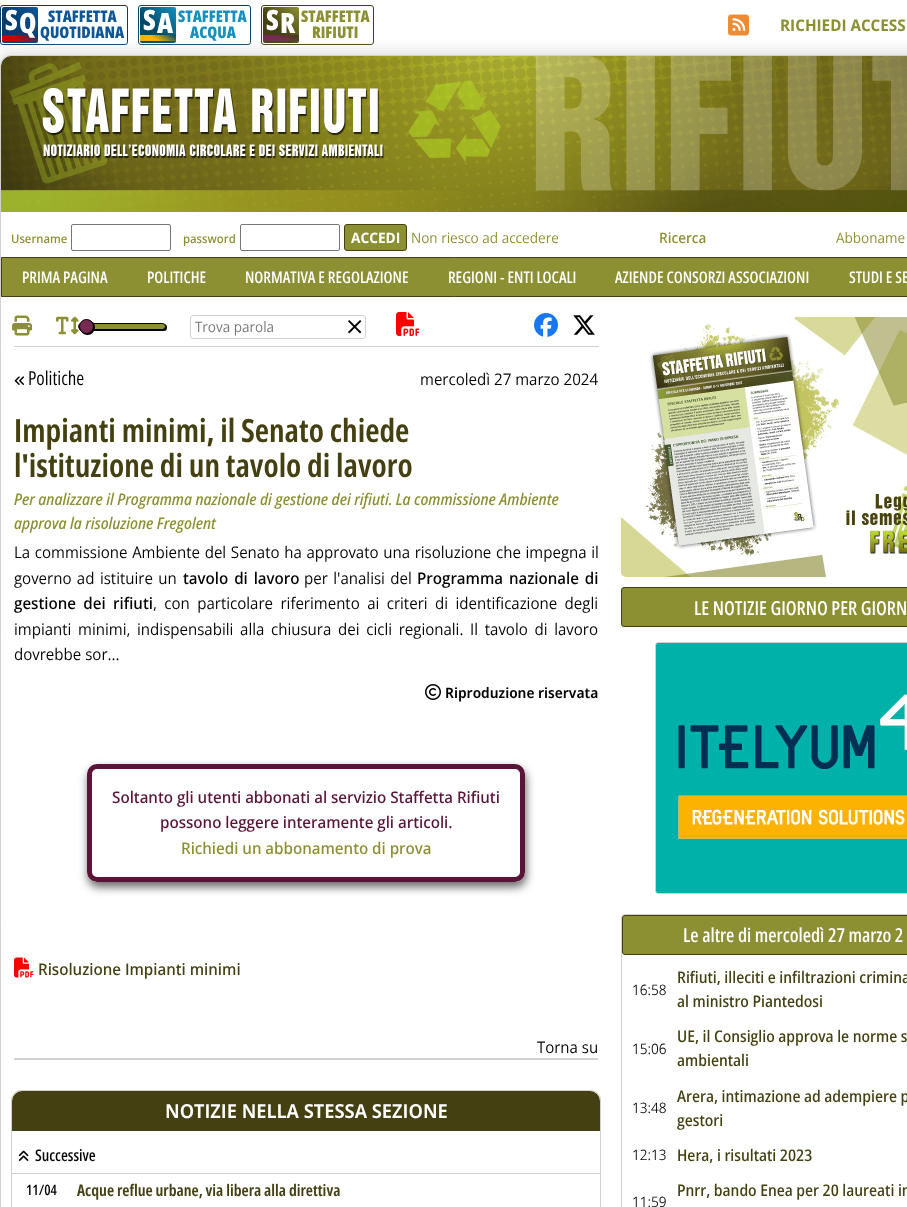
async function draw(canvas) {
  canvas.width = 907;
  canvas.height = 1207;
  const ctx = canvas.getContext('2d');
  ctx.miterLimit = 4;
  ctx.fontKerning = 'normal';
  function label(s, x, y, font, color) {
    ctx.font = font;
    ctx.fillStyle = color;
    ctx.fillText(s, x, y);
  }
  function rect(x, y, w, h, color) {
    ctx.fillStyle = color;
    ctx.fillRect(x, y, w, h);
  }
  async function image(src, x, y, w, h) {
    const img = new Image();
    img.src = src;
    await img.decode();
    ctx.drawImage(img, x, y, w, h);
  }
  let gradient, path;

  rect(0, 0, 907, 1207, '#fff');
  ctx.beginPath();
  ctx.roundRect(0.5, 5.5, 127, 39, 2.5);
  ctx.strokeStyle = '#033b6e';
  ctx.stroke();
  gradient = ctx.createLinearGradient(2, 43, 38, 7);
  gradient.addColorStop(0, '#033b6e');
  gradient.addColorStop(0.4, '#033b6e');
  gradient.addColorStop(1, '#0f5696');
  ctx.fillStyle = gradient;
  ctx.beginPath();
  ctx.roundRect(2, 7, 36, 36, 2);
  ctx.fill();
  label('S', 5, 30, '800 28px Open Sans', '#fff');
  gradient = ctx.createLinearGradient(13, 48, 27, 28);
  gradient.addColorStop(0, '#c00');
  gradient.addColorStop(0.4, '#c00');
  gradient.addColorStop(1, '#033b6e');
  ctx.fillStyle = gradient;
  ctx.fillRect(2, 35, 36, 6);
  label('Q', 19, 33, '800 28px Open Sans', '#fff');
  label('STAFFETTA', 48, 22, '800 16px Open Sans', '#0f5696');
  label('QUOTIDIANA', 40, 38, '800 16px Open Sans', '#0f5696');
  ctx.beginPath();
  ctx.roundRect(138.5, 5.5, 112, 39, 2.5);
  ctx.strokeStyle = '#004a67';
  ctx.stroke();
  gradient = ctx.createLinearGradient(140, 43, 176, 7);
  gradient.addColorStop(0, '#004a67');
  gradient.addColorStop(0.4, '#004a67');
  gradient.addColorStop(1, '#1590bf');
  ctx.fillStyle = gradient;
  ctx.beginPath();
  ctx.roundRect(140, 7, 36, 36, 2);
  ctx.fill();
  label('S', 143, 30, '800 28px Open Sans', '#fff');
  label('A', 157, 33, '800 28px Open Sans', '#fff');
  gradient = ctx.createLinearGradient(151, 48, 165, 28);
  gradient.addColorStop(0, '#fcb300');
  gradient.addColorStop(0.4, '#fcb300');
  gradient.addColorStop(1, '#004a67');
  ctx.fillStyle = gradient;
  ctx.fillRect(140, 35, 36, 6);
  label('STAFFETTA', 178, 22, '800 16px Open Sans', '#1590bf');
  label('ACQUA', 190, 38, '800 16px Open Sans', '#1590bf');
  ctx.beginPath();
  ctx.roundRect(261.5, 5.5, 112, 39, 2.5);
  ctx.strokeStyle = '#444011';
  ctx.stroke();
  gradient = ctx.createLinearGradient(263, 43, 299, 7);
  gradient.addColorStop(0, '#444011');
  gradient.addColorStop(0.4, '#444011');
  gradient.addColorStop(1, '#8c8f32');
  ctx.fillStyle = gradient;
  ctx.beginPath();
  ctx.roundRect(263, 7, 36, 36, 2);
  ctx.fill();
  label('S', 266, 30, '800 28px Open Sans', '#fff');
  label('R', 280, 33, '800 28px Open Sans', '#fff');
  gradient = ctx.createLinearGradient(274, 48, 288, 28);
  gradient.addColorStop(0, '#762951');
  gradient.addColorStop(0.4, '#762951');
  gradient.addColorStop(1, '#444011');
  ctx.fillStyle = gradient;
  ctx.fillRect(263, 35, 36, 6);
  label('STAFFETTA', 301, 22, '800 16px Open Sans', '#8c8f32');
  label('RIFIUTI', 312, 38, '800 16px Open Sans', '#8c8f32');
  await image('assets/img1.png', 728, 14, 21, 22);
  label('RICHIEDI ACCESS', 780, 31, 'bold 16px Open Sans', '#8c8f32');
  ctx.save();
  path = new Path2D('M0 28H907V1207H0ZM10 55H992C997.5 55 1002 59.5 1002 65V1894C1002 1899.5 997.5 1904 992 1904H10C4.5 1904 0 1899.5 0 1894V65C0 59.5 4.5 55 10 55Z');
  ctx.clip(path, 'evenodd');
  ctx.fillStyle = '#d1d1d1';
  ctx.filter = 'blur(8.5px)';
  ctx.beginPath();
  ctx.roundRect(-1, 55, 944, 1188, 10);
  ctx.fill();
  ctx.filter = 'none';
  ctx.restore();
  ctx.beginPath();
  ctx.roundRect(0.5, 55.5, 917, 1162, 9.5);
  ctx.strokeStyle = '#d1d1d1';
  ctx.stroke();
  await image('assets/img2.png', 1, 56, 906, 156);
  label('Username', 11, 243, '500 12px Open Sans', '#8c8f32');
  ctx.beginPath();
  ctx.roundRect(71.5, 224.5, 99, 26, 1.5);
  ctx.strokeStyle = '#767676';
  ctx.stroke();
  label('password', 183, 243, '500 12px Open Sans', '#8c8f32');
  ctx.beginPath();
  ctx.roundRect(240.5, 224.5, 99, 26, 1.5);
  ctx.stroke();
  ctx.beginPath();
  ctx.roundRect(344.5, 224.5, 62, 26, 2.5);
  ctx.fill();
  ctx.strokeStyle = '#444011';
  ctx.stroke();
  label('ACCEDI', 351, 243, 'bold 14.4px Open Sans', '#fff');
  label('Non riesco ad accedere', 411, 243, '14.4px Open Sans', '#8c8f32');
  label('Ricerca', 659, 243, '500 14.4px Open Sans', '#8c8f32');
  label('Abboname', 836, 243, '14.4px Open Sans', '#8c8f32');
  ctx.beginPath();
  ctx.rect(1.5, 257.5, 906, 39);
  ctx.fill();
  ctx.stroke();
  label('PRIMA PAGINA', 22, 283, '500 16px "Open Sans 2"', '#fff');
  label('POLITICHE', 147, 283, '500 16px "Open Sans 2"', '#fff');
  label('NORMATIVA E REGOLAZIONE', 245, 283, '500 16px "Open Sans 2"', '#fff');
  label('REGIONI - ENTI LOCALI', 448, 283, '500 16px "Open Sans 2"', '#fff');
  label('AZIENDE CONSORZI ASSOCIAZIONI', 615, 283, '500 16px "Open Sans 2"', '#fff');
  label('STUDI E SE', 849, 283, '500 16px "Open Sans 2"', '#fff');
  rect(14, 346, 585, 1, '#d1d1d1');
  await image('assets/img3.png', 12, 315, 20, 21);
  ctx.fillStyle = '#000';
  ctx.filter = 'blur(0.5px)';
  ctx.beginPath();
  ctx.roundRect(79, 324, 88, 7, 3.5);
  ctx.fill();
  ctx.filter = 'none';
  ctx.fillStyle = '#8c8f32';
  ctx.beginPath();
  ctx.roundRect(78.5, 323.5, 87, 6, 3);
  ctx.fill();
  ctx.strokeStyle = '#000';
  ctx.stroke();
  ctx.fillStyle = '#000';
  ctx.filter = 'blur(0.5px)';
  ctx.beginPath();
  ctx.roundRect(80, 320, 15, 15, 7.5);
  ctx.fill();
  ctx.filter = 'none';
  await image('assets/img4.png', 56, 316, 23, 19);
  ctx.fillStyle = '#762951';
  ctx.beginPath();
  ctx.arc(86.5, 326.5, 7, 0, 2 * Math.PI);
  ctx.fill();
  ctx.stroke();
  ctx.beginPath();
  ctx.roundRect(190.5, 315.5, 175, 23, 2.5);
  ctx.strokeStyle = '#d1d1d1';
  ctx.stroke();
  label('Trova parola', 195, 332, '14.4px Open Sans', '#757575');
  label('×', 346, 338, '32px Open Sans', '#000');
  await image('assets/img5.png', 396, 312, 24, 24);
  await image('assets/img6.png', 534, 313, 24, 24);
  await image('assets/img7.png', 573, 315, 22, 20);
  await image('assets/img8.png', 14, 376, 10, 9);
  label('Politiche', 28, 385, '19.25px "Open Sans 2"', '#000');
  label('mercoledì 27 marzo 2024', 420, 385, '16px Open Sans', '#000');
  label('Impianti minimi, il Senato chiede', 14, 442, '600 32px Open Sans', '#444011');
  label('l\'istituzione di un tavolo di lavoro', 14, 477, '600 32px Open Sans', '#444011');
  label('Per analizzare il Programma nazionale di gestione dei rifiuti. La commissione Ambiente', 14, 505, 'italic 500 16px Open Sans', '#8c8f32');
  label('approva la risoluzione Fregolent', 14, 529, 'italic 500 16px Open Sans', '#8c8f32');
  ctx.wordSpacing = '0.75px';
  label('La commissione Ambiente del Senato ha approvato una risoluzione che impegna il', 14, 558, '16px Open Sans', '#000');
  ctx.wordSpacing = '1.5px';
  label('governo ad istituire un', 14, 584, '16px Open Sans', '#000');
  ctx.wordSpacing = '2px';
  label('tavolo di lavoro', 183, 584, '500 16px Open Sans', '#000');
  ctx.wordSpacing = '1.5px';
  label('per l\'analisi del', 304, 584, '16px Open Sans', '#000');
  ctx.wordSpacing = '2px';
  label('Programma nazionale di', 417, 584, '500 16px Open Sans', '#000');
  ctx.wordSpacing = '3.5px';
  label('gestione dei rifiuti', 14, 609, '500 16px Open Sans', '#000');
  label(', con particolare riferimento ai criteri di identificazione degli', 153, 609, '16px Open Sans', '#000');
  ctx.wordSpacing = '2.75px';
  label('impianti minimi, indispensabili alla chiusura dei cicli regionali. Il tavolo di lavoro', 14, 635, '16px Open Sans', '#000');
  ctx.wordSpacing = '0px';
  label('dovrebbe sor...', 14, 660, '16px Open Sans', '#000');
  await image('assets/img9.png', 425, 684, 16, 16);
  label('Riproduzione riservata', 445, 698, '600 14.4px "Open Sans 2"', '#000');
  ctx.save();
  path = new Path2D('M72 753H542V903H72ZM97 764H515C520.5 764 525 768.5 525 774V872C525 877.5 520.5 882 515 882H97C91.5 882 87 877.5 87 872V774C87 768.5 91.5 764 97 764Z');
  ctx.clip(path, 'evenodd');
  ctx.fillStyle = '#666';
  ctx.filter = 'blur(5px)';
  ctx.beginPath();
  ctx.roundRect(88, 769, 438, 118, 10);
  ctx.fill();
  ctx.filter = 'none';
  ctx.restore();
  ctx.beginPath();
  ctx.roundRect(89.5, 766.5, 433, 113, 7.5);
  ctx.strokeStyle = '#5a1438';
  ctx.lineWidth = 5;
  ctx.stroke();
  label('Soltanto gli utenti abbonati al servizio Staffetta Rifiuti', 112, 803, '500 16px Open Sans', '#5a1438');
  label('possono leggere interamente gli articoli.', 160, 828, '500 16px Open Sans', '#5a1438');
  label('Richiedi un abbonamento di prova', 181, 854, '500 16px Open Sans', '#8c8f32');
  await image('assets/img10.png', 14, 957, 20, 21);
  label('Risoluzione Impianti minimi', 38, 975, '500 16px Open Sans', '#444011');
  rect(14, 1058, 584, 2, '#d1d1d1');
  label('Torna su', 537, 1053, '16px Open Sans', '#000');
  path = new Path2D('M21 1090.5H591C596 1090.5 600.5 1095 600.5 1100V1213C600.5 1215.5 598.5 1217.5 596 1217.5H16C13.5 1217.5 11.5 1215.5 11.5 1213V1100C11.5 1095 16 1090.5 21 1090.5Z');
  ctx.strokeStyle = '#d1d1d1';
  ctx.lineWidth = 1;
  ctx.stroke(path);
  ctx.fillStyle = '#444011';
  ctx.beginPath();
  ctx.roundRect(12, 1091, 588, 40, [10, 10, 0, 0]);
  ctx.fill();
  label('NOTIZIE NELLA STESSA SEZIONE', 165, 1118, '600 19.25px "Open Sans 2"', '#fff');
  rect(12, 1173, 589, 1, '#d1d1d1');
  await image('assets/img11.png', 18, 1150, 11, 11);
  label('Successive', 35, 1161, '500 16px "Open Sans 2"', '#000');
  label('11/04', 26, 1195, '500 14.4px "Open Sans 2"', '#000');
  label('Acque reflue urbane, via libera alla direttiva', 77, 1196, '600 16px Open Sans', '#444011');
  await image('assets/img12.png', 621, 317, 286, 260);
  ctx.fillStyle = '#8c8f32';
  ctx.beginPath();
  ctx.roundRect(621.5, 587.5, 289, 39, 2.5);
  ctx.fill();
  ctx.strokeStyle = '#444011';
  ctx.stroke();
  label('LE NOTIZIE GIORNO PER GIORN', 694, 615, '500 19.25px "Open Sans 2"', '#fff');
  ctx.beginPath();
  ctx.roundRect(655.5, 642.5, 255, 251, 2.5);
  ctx.strokeStyle = '#d1d1d1';
  ctx.stroke();
  await image('assets/img13.png', 656, 643, 251, 250);
  ctx.beginPath();
  ctx.roundRect(621.5, 914.5, 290, 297, 3.5);
  ctx.stroke();
  ctx.fillStyle = '#8c8f32';
  ctx.beginPath();
  ctx.roundRect(622.5, 915.5, 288, 39, 2.5);
  ctx.fill();
  ctx.strokeStyle = '#444011';
  ctx.stroke();
  label('Le altre di mercoledì 27 marzo 2', 683, 942, '500 19.25px "Open Sans 2"', '#fff');
  label('16:58', 632, 995, '300 14.4px Open Sans', '#000');
  label('Rifiuti, illeciti e infiltrazioni crimina', 677, 983, '500 16px "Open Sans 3"', '#444011');
  label('al ministro Piantedosi', 677, 1007, '500 16px "Open Sans 3"', '#444011');
  label('15:06', 632, 1054, '300 14.4px Open Sans', '#000');
  label('UE, il Consiglio approva le norme s', 677, 1042, '500 16px "Open Sans 3"', '#444011');
  label('ambientali', 677, 1066, '500 16px "Open Sans 3"', '#444011');
  label('13:48', 632, 1113, '300 14.4px Open Sans', '#000');
  label('Arera, intimazione ad adempiere p', 677, 1102, '500 16px "Open Sans 3"', '#444011');
  label('gestori', 677, 1126, '500 16px "Open Sans 3"', '#444011');
  label('12:13', 632, 1160, '300 14.4px Open Sans', '#000');
  label('Hera, i risultati 2023', 677, 1161, '500 16px "Open Sans 3"', '#444011');
  label('Pnrr, bando Enea per 20 laureati in', 677, 1196, '500 16px "Open Sans 3"', '#444011');
  label('11:59', 632, 1207, '300 14.4px Open Sans', '#000');
}

draw(document.querySelector('canvas'));
